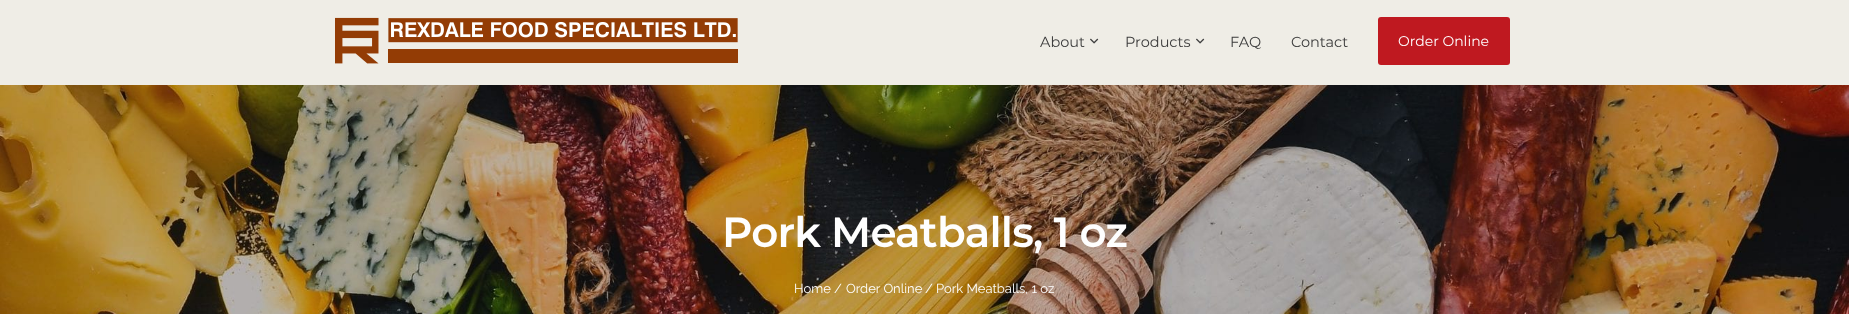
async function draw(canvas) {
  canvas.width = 1849;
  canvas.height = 314;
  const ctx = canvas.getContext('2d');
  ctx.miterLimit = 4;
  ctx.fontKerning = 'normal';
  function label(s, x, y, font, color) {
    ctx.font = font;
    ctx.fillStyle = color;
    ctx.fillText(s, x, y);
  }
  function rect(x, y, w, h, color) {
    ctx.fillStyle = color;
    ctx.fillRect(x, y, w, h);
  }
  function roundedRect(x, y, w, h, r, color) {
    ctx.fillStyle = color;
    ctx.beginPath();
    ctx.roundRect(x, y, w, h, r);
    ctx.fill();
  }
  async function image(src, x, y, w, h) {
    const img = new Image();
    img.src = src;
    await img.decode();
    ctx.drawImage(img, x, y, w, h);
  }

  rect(0, 0, 1849, 314, '#efede6');
  await image('assets/img1.png', 335, 17, 403, 47);
  label('About', 1040, 47, '14.5px Montserrat', '#3d3d3d');
  await image('assets/img2.png', 1090, 38, 9, 6);
  label('Products', 1125, 47, '14.5px Montserrat', '#3d3d3d');
  await image('assets/img2.png', 1196, 38, 9, 6);
  label('FAQ', 1230, 47, '14.5px Montserrat', '#3d3d3d');
  label('Contact', 1291, 47, '14.5px Montserrat', '#3d3d3d');
  roundedRect(1378, 17, 132, 48, 3, '#bf1920');
  label('Order Online', 1398, 46, '14px Montserrat', '#fefefe');
  await image('assets/img3.png', 0, 85, 1849, 229);
  ctx.letterSpacing = '-0.75px';
  label('Pork Meatballs, 1 oz', 722, 247, '600 42px Montserrat', '#fefefe');
  ctx.letterSpacing = '0px';
  label('Home', 794, 293, '13px Raleway', '#fefefe');
  label('/', 834, 293, '13px Raleway', '#fefefe');
  label('Order Online', 846, 293, '13px Raleway', '#fefefe');
  label('/', 925, 293, '13px Raleway', '#fefefe');
  label('Pork Meatballs, 1 oz', 936, 293, '13px Raleway', '#fefefe');
}

draw(document.querySelector('canvas'));
